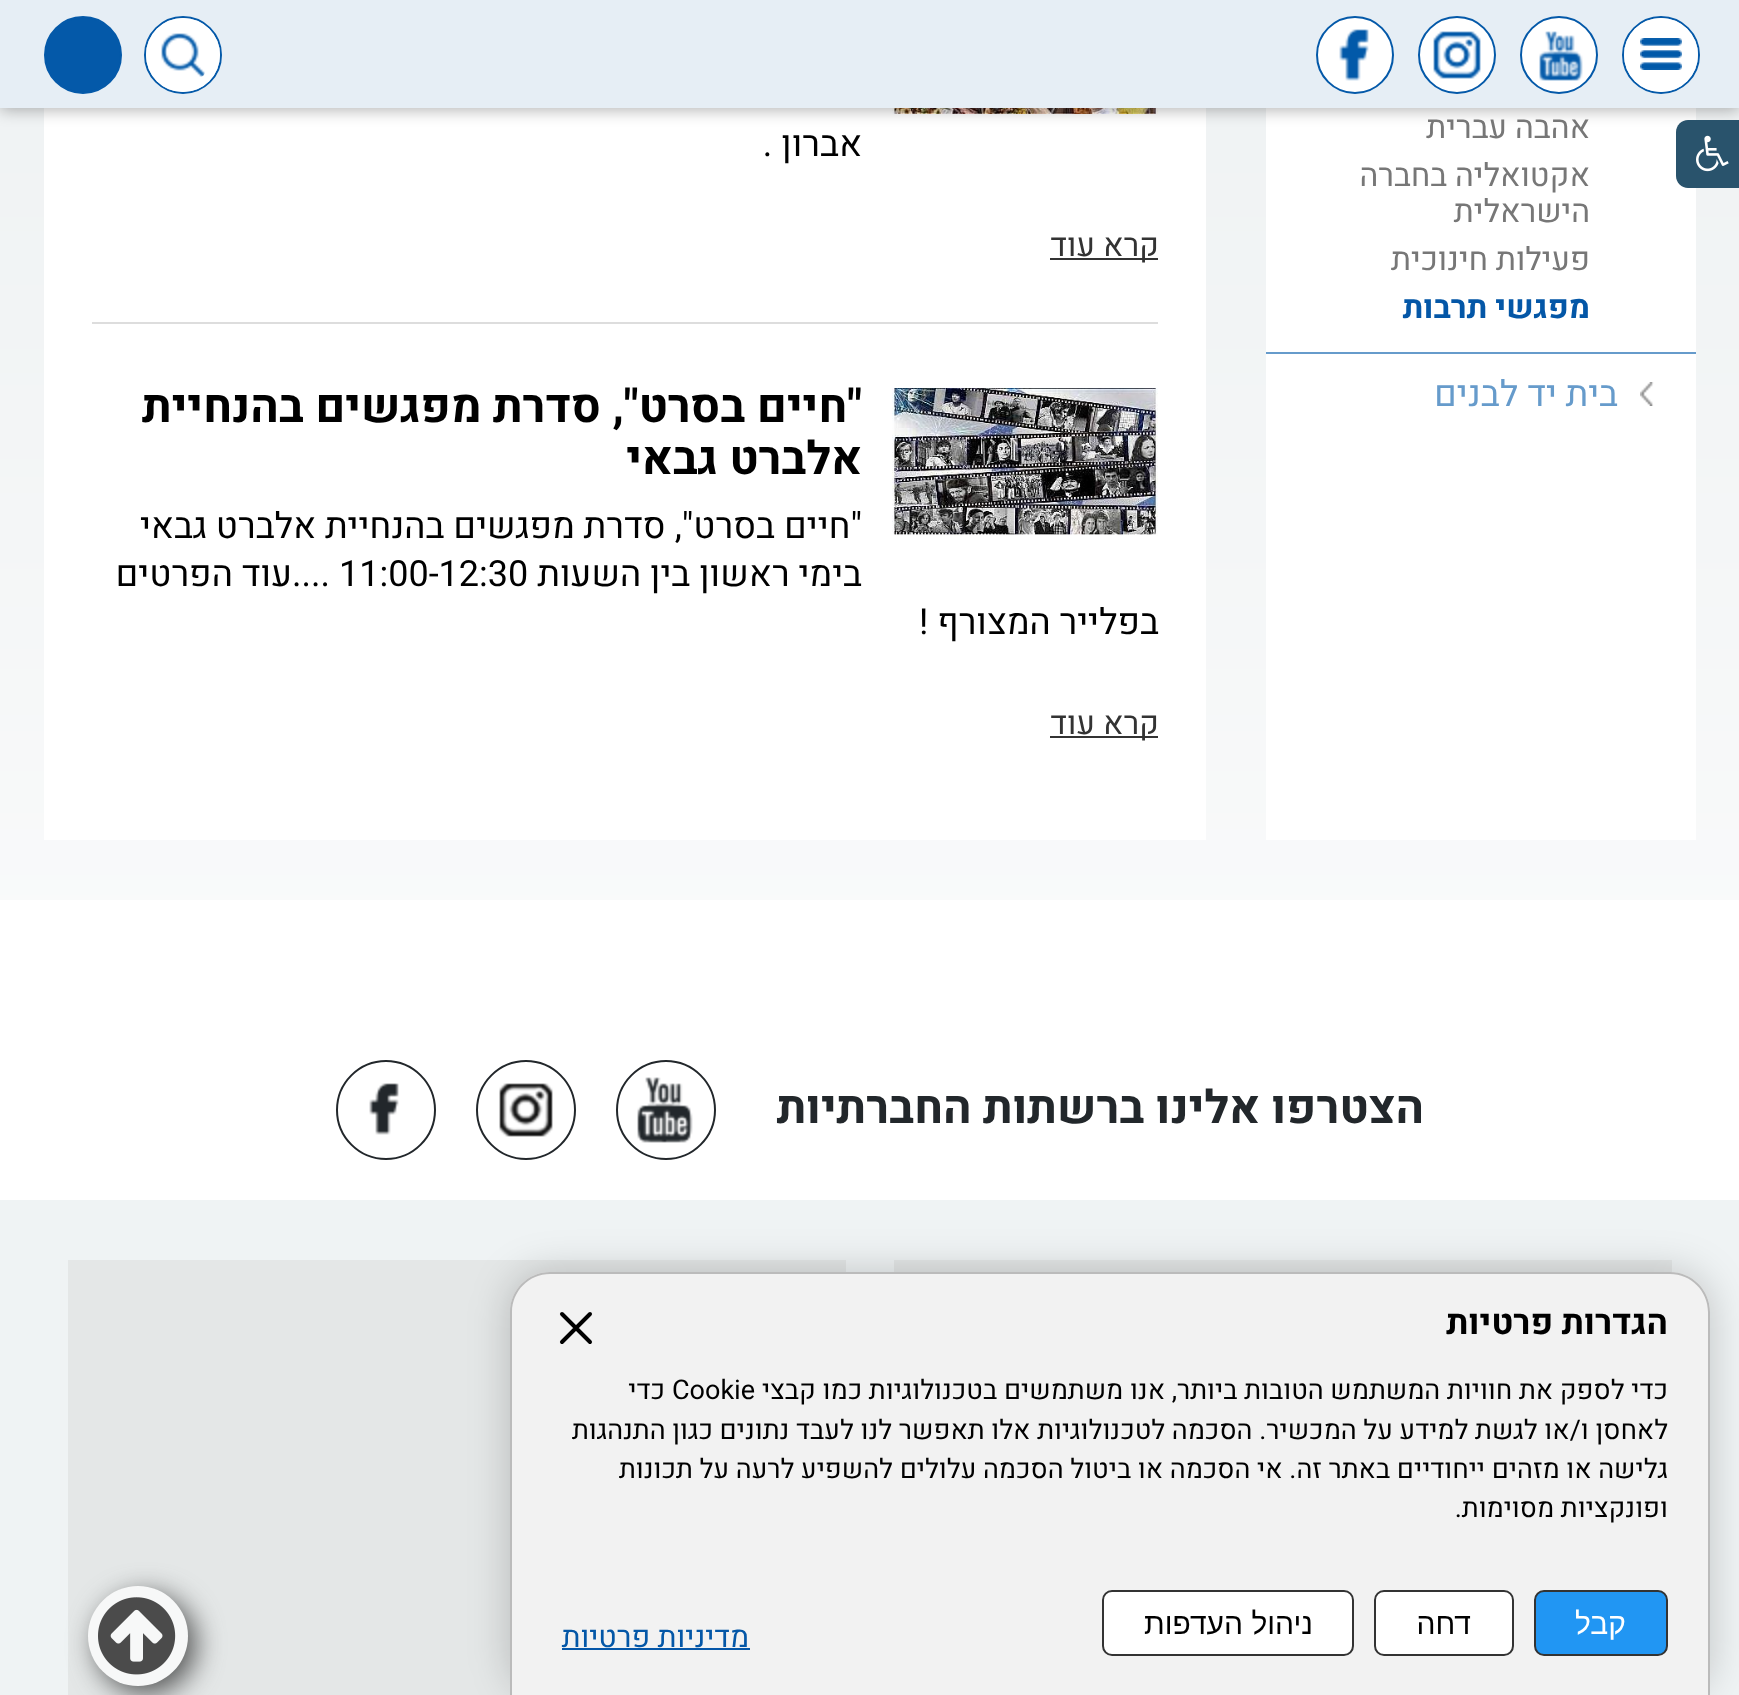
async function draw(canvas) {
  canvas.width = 1739;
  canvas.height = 1695;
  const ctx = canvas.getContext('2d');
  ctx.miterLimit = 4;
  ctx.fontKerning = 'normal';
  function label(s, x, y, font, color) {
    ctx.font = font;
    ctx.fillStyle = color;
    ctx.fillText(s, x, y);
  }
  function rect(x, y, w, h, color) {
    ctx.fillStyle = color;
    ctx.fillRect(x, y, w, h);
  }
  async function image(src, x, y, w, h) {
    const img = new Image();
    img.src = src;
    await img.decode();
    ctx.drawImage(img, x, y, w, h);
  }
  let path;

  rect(0, 0, 1739, 1695, '#fff');
  await image('assets/img7.png', 0, 108, 1739, 792);
  rect(1266, 108, 430, 732, '#fff');
  rect(44, 108, 1162, 732, '#fff');
  await image('assets/img9.png', 892, 108, 266, 6);
  ctx.fillStyle = '#0000004d';
  ctx.filter = 'blur(8px)';
  ctx.beginPath();
  ctx.rect(0, 2, 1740, 108);
  ctx.fill();
  ctx.filter = 'none';
  ctx.fillStyle = '#29536c';
  path = new Path2D('M1688 120H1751V188H1688C1681.5 188 1676 182.5 1676 176V132C1676 125.5 1681.5 120 1688 120Z');
  ctx.fill(path);
  await image('assets/img1.png', 1696, 135, 33, 37);
  rect(0, 0, 1739, 108, '#e6eef5');
  ctx.beginPath();
  ctx.arc(1661, 55, 38, 0, 2 * Math.PI);
  ctx.strokeStyle = '#0459a9';
  ctx.lineWidth = 2;
  ctx.stroke();
  ctx.fillStyle = '#fff';
  ctx.beginPath();
  ctx.arc(1661, 55, 37, 0, 2 * Math.PI);
  ctx.fill();
  await image('assets/img2.png', 1640, 38, 42, 32);
  ctx.beginPath();
  ctx.arc(1559, 55, 38, 0, 2 * Math.PI);
  ctx.fill();
  ctx.stroke();
  await image('assets/img3.png', 1539, 31, 44, 50);
  ctx.beginPath();
  ctx.arc(1457, 55, 38, 0, 2 * Math.PI);
  ctx.fill();
  ctx.stroke();
  await image('assets/img4.png', 1433, 31, 48, 48);
  ctx.beginPath();
  ctx.arc(1355, 55, 38, 0, 2 * Math.PI);
  ctx.fill();
  ctx.stroke();
  await image('assets/img5.png', 1339, 29, 30, 52);
  ctx.beginPath();
  ctx.arc(183, 55, 38, 0, 2 * Math.PI);
  ctx.stroke();
  ctx.beginPath();
  ctx.arc(183, 55, 37, 0, 2 * Math.PI);
  ctx.fill();
  await image('assets/img6.png', 161, 33, 44, 44);
  ctx.fillStyle = '#0459a9';
  ctx.beginPath();
  ctx.arc(83, 55, 38, 0, 2 * Math.PI);
  ctx.fill();
  ctx.stroke();
  rect(1266, 352, 430, 2, '#669bcb');
  ctx.direction = 'rtl';
  label('אהבה עברית', 1590, 138, '32px Heebo', '#777');
  label('אקטואליה בחברה', 1590, 186, '32px Heebo', '#777');
  label('הישראלית', 1590, 222, '32px Heebo', '#777');
  label('פעילות חינוכית', 1590, 270, '32px Heebo', '#777');
  label('מפגשי תרבות', 1590, 318, 'bold 32px Heebo', '#0457a7');
  await image('assets/img8.png', 1640, 382, 14, 24);
  label('בית יד לבנים', 1618, 406, '36px Heebo', '#669bcb');
  label('אברון .', 862, 156, '36px Heebo', '#000');
  rect(1050, 258, 108, 2, '#333');
  label('קרא עוד', 1159, 256, '32px Heebo', '#333');
  rect(92, 322, 1066, 2, '#ddd');
  await image('assets/img10.png', 892, 388, 266, 148);
  label('"חיים בסרט", סדרת מפגשים בהנחיית', 862, 422, 'bold 46px Heebo', '#000');
  label('אלברט גבאי', 862, 474, 'bold 46px Heebo', '#000');
  label('"חיים בסרט", סדרת מפגשים בהנחיית אלברט גבאי', 862, 538, '36px Heebo', '#000');
  label('בימי ראשון בין השעות', 862, 586, '36px Heebo', '#000');
  ctx.direction = 'ltr';
  label('11:00-12:30', 339, 586, '36px Heebo', '#000');
  ctx.direction = 'rtl';
  label('....עוד הפרטים', 330, 586, '36px Heebo', '#000');
  label('בפלייר המצורף !', 1159, 634, '36px Heebo', '#000');
  rect(1050, 736, 108, 2, '#333');
  label('קרא עוד', 1159, 734, '32px Heebo', '#333');
  label('הצטרפו אלינו ברשתות החברתיות', 1424, 1123, 'bold 46px Heebo', '#22272b');
  ctx.beginPath();
  ctx.arc(666, 1110, 49, 0, 2 * Math.PI);
  ctx.strokeStyle = '#22272b';
  ctx.stroke();
  await image('assets/img11.png', 637, 1077, 56, 66);
  ctx.beginPath();
  ctx.arc(526, 1110, 49, 0, 2 * Math.PI);
  ctx.stroke();
  await image('assets/img12.png', 499, 1083, 54, 54);
  ctx.beginPath();
  ctx.arc(386, 1110, 49, 0, 2 * Math.PI);
  ctx.stroke();
  await image('assets/img13.png', 369, 1083, 30, 52);
  rect(0, 1200, 1739, 495, '#eff3f4');
  rect(894, 1260, 778, 13, '#e4e7e7');
  rect(68, 1260, 778, 435, '#e4e7e7');
  ctx.fillStyle = '#444545e6';
  ctx.filter = 'blur(14px)';
  ctx.beginPath();
  ctx.roundRect(96, 1594, 100, 100, 50);
  ctx.fill();
  ctx.filter = 'none';
  ctx.fillStyle = '#f7f8f8';
  ctx.beginPath();
  ctx.arc(138, 1636, 50, 0, 2 * Math.PI);
  ctx.fill();
  await image('assets/img14.png', 98, 1597, 78, 78);
  ctx.fillStyle = '#00000033';
  ctx.filter = 'blur(20px)';
  ctx.beginPath();
  ctx.roundRect(510, 1272, 1200, 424, 40);
  ctx.fill();
  ctx.filter = 'none';
  ctx.fillStyle = '#f2f2f2';
  path = new Path2D('M550 1272H1670C1692 1272 1710 1290 1710 1312V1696H510V1312C510 1290 528 1272 550 1272Z');
  ctx.fill(path);
  ctx.fillStyle = '#bbb';
  path = new Path2D('M550 1272H1670C1692 1272 1710 1290 1710 1312V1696H510V1312C510 1290 528 1272 550 1272ZM550 1274H1670C1691 1274 1708 1291 1708 1312V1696H512V1312C512 1291 529 1274 550 1274Z');
  ctx.fill(path, 'evenodd');
  label('הגדרות פרטיות', 1668, 1334, 'bold 34.5px Heebo', '#000');
  path = new Path2D('M562 1314L590 1342M562 1342L590 1314');
  ctx.strokeStyle = '#000';
  ctx.lineWidth = 4;
  ctx.lineCap = 'round';
  ctx.lineJoin = 'round';
  ctx.stroke(path);
  label('כדי לספק את חוויות המשתמש הטובות ביותר, אנו משתמשים בטכנולוגיות כמו קבצי', 1668, 1399, '27px Heebo', '#000');
  ctx.direction = 'ltr';
  label('Cookie', 672, 1399, '27px Heebo', '#000');
  ctx.direction = 'rtl';
  label('כדי', 665, 1399, '27px Heebo', '#000');
  label('לאחסן ו/או לגשת למידע על המכשיר. הסכמה לטכנולוגיות אלו תאפשר לנו לעבד נתונים כגון התנהגות', 1668, 1439, '27px Heebo', '#000');
  label('גלישה או מזהים ייחודיים באתר זה. אי הסכמה או ביטול הסכמה עלולים להשפיע לרעה על תכונות', 1668, 1478, '27px Heebo', '#000');
  label('ופונקציות מסוימות.', 1668, 1517, '27px Heebo', '#000');
  ctx.fillStyle = '#2196f3';
  ctx.beginPath();
  ctx.roundRect(1535, 1591, 132, 64, 9);
  ctx.fill();
  ctx.strokeStyle = '#333';
  ctx.lineWidth = 2;
  ctx.lineJoin = 'miter';
  ctx.stroke();
  label('קבל', 1626, 1634, '30px Liberation Sans', '#fff');
  ctx.beginPath();
  ctx.roundRect(1375, 1591, 138, 64, 9);
  ctx.fill();
  ctx.stroke();
  label('דחה', 1471, 1634, '30px Liberation Sans', '#000');
  ctx.fillStyle = '#fff';
  ctx.beginPath();
  ctx.roundRect(1103, 1591, 250, 64, 9);
  ctx.fill();
  ctx.stroke();
  label('ניהול העדפות', 1313, 1634, '30px Liberation Sans', '#000');
  label('מדיניות פרטיות', 749, 1647, '30px Heebo', '#0457a7');
  rect(562, 1648, 188, 2, '#0456a8');
}

draw(document.querySelector('canvas'));
